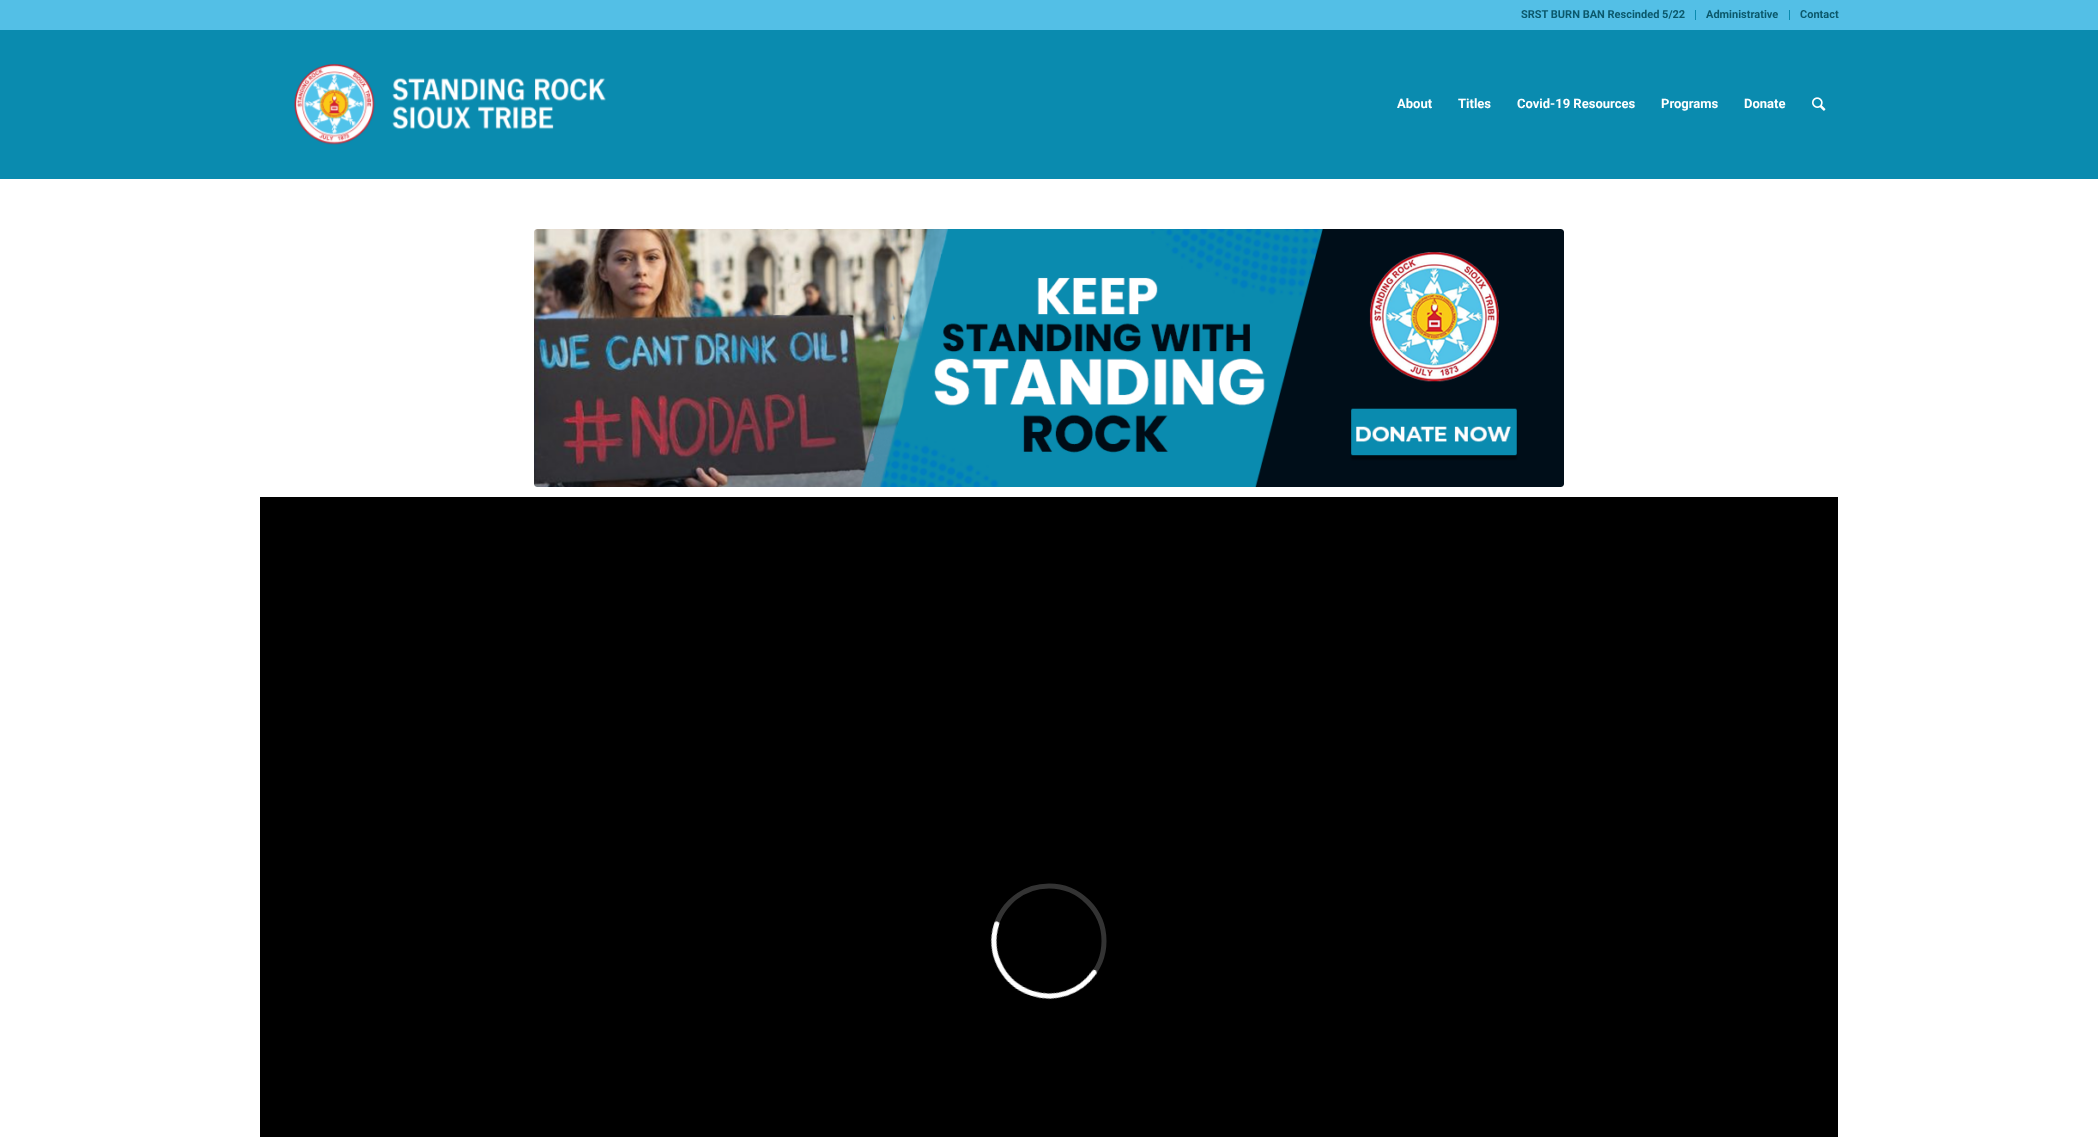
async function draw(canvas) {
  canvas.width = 2098;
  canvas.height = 1137;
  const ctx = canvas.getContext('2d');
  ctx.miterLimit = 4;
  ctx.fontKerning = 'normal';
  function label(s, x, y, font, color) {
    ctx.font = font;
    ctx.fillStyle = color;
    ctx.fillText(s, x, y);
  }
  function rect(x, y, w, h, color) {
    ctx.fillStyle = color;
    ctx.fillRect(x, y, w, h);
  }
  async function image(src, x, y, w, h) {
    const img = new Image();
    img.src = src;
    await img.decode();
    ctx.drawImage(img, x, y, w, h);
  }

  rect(0, 0, 2098, 1137, '#fff');
  rect(0, 0, 2098, 30, '#53bfe6');
  rect(1695, 10, 1, 10, '#0a8baf');
  label('SRST BURN BAN Rescinded 5/22', 1521, 18, 'bold 11px Roboto', '#0b586b');
  rect(1789, 10, 1, 10, '#0a8baf');
  label('Administrative', 1706, 18, 'bold 11px Roboto', '#0b586b');
  label('Contact', 1800, 18, 'bold 11px Roboto', '#0b586b');
  rect(0, 30, 2098, 149, '#0a8baf');
  await image('assets/img1.png', 294, 64, 312, 81);
  label('About', 1397, 108, 'bold 13px Roboto', '#fff');
  label('Titles', 1458, 108, 'bold 13px Roboto', '#fff');
  label('Covid-19 Resources', 1517, 108, 'bold 13px Roboto', '#fff');
  label('Programs', 1661, 108, 'bold 13px Roboto', '#fff');
  label('Donate', 1744, 108, 'bold 13px Roboto', '#fff');
  await image('assets/img2.png', 1812, 97, 14, 14);
  await image('assets/img3.png', 534, 229, 1030, 258);
  rect(260, 497, 1578, 640, '#000');
  await image('assets/img4.png', 990, 883, 117, 117);
}

draw(document.querySelector('canvas'));
